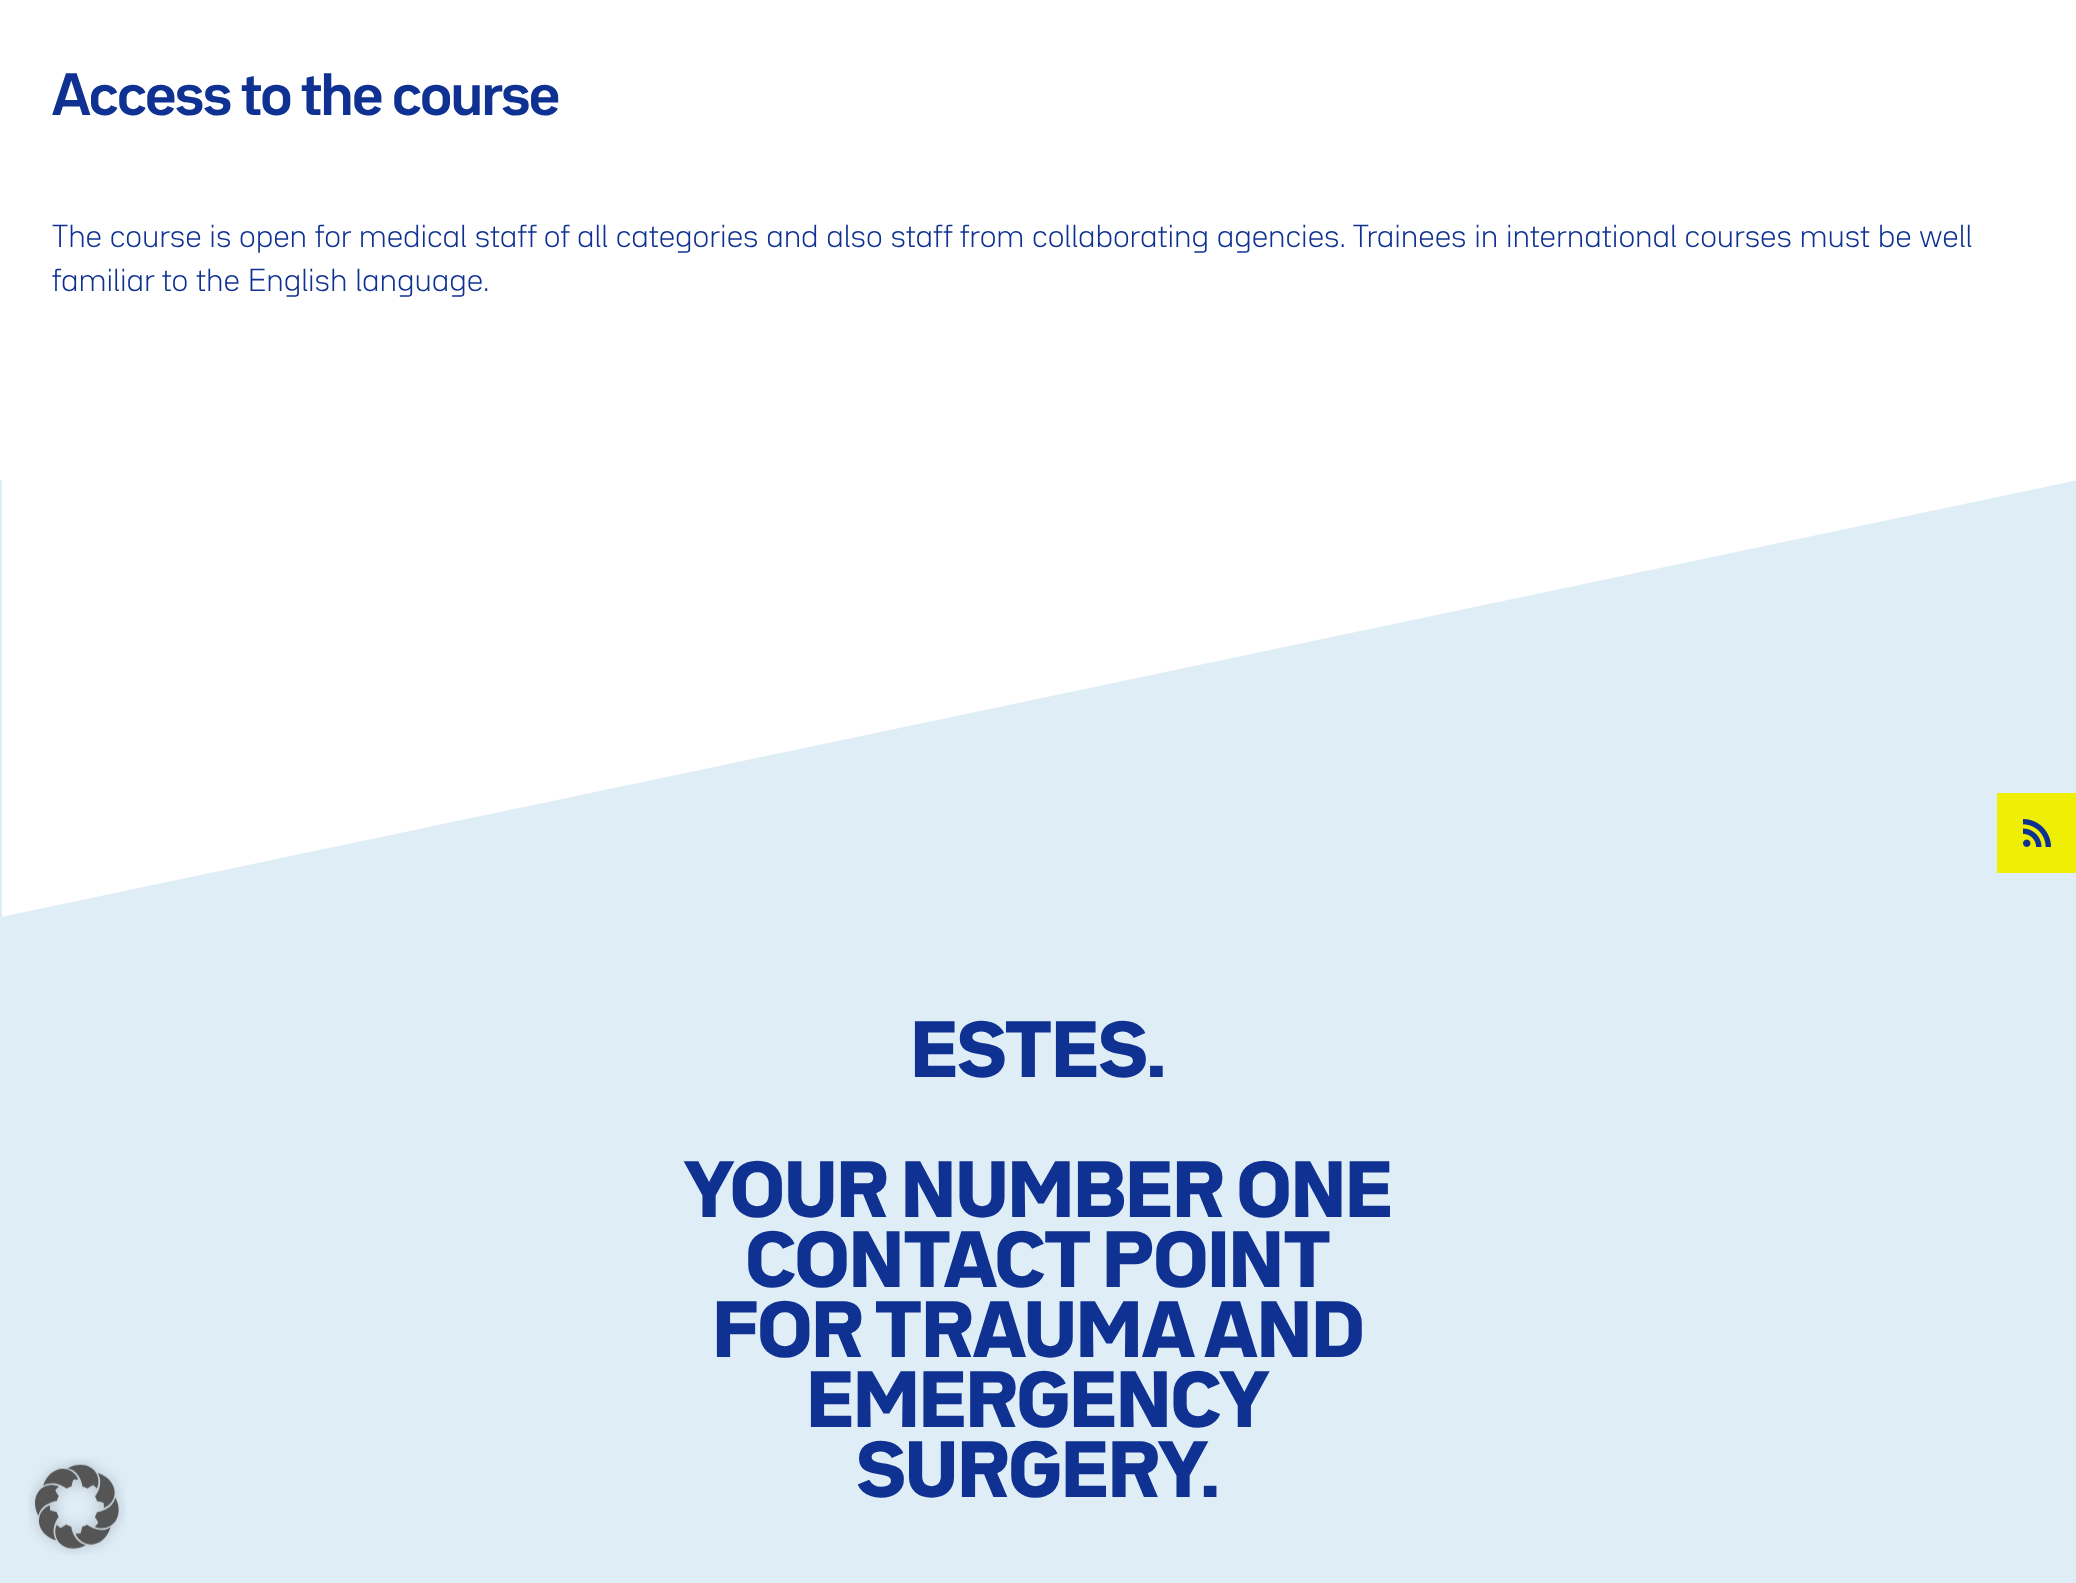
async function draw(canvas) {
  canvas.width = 2076;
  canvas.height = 1583;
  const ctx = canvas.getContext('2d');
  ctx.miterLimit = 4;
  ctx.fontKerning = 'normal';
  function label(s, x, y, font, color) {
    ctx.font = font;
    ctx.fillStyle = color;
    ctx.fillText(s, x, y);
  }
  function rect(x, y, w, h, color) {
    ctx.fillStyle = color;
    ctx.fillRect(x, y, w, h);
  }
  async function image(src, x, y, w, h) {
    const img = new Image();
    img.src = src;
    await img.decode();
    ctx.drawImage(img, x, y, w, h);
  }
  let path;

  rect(0, 0, 2076, 1583, '#fff');
  ctx.letterSpacing = '-0.75px';
  label('Access to the course', 52, 115, 'bold 52.5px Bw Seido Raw', '#0e3192');
  ctx.letterSpacing = '0.42px';
  label('The course is open for medical staff of all categories and also staff from collaborating agencies. Trainees in international courses must be well', 52, 247, '300 28px Bw Seido Raw', '#0e3192');
  label('familiar to the English language.', 52, 291, '300 28px Bw Seido Raw', '#0e3192');
  rect(0, 480, 2076, 1103, '#dfedf7');
  ctx.save();
  ctx.beginPath();
  ctx.rect(2, 480, 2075, 437);
  ctx.clip();
  ctx.fillStyle = '#fff';
  path = new Path2D('M1 917V480H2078Z');
  ctx.fill(path);
  ctx.restore();
  rect(1997, 793, 79, 80, '#efef06');
  await image('assets/img1.png', 2023, 819, 28, 28);
  label('ESTES.', 911, 1077, '900 70px Bw Seido Raw', '#0e3192');
  label('YOUR NUMBER ONE', 684, 1217, '900 70px Bw Seido Raw', '#0e3192');
  label('CONTACT POINT', 746, 1287, '900 70px Bw Seido Raw', '#0e3192');
  label('FOR TRAUMA AND', 713, 1357, '900 70px Bw Seido Raw', '#0e3192');
  label('EMERGENCY', 807, 1427, '900 70px Bw Seido Raw', '#0e3192');
  label('SURGERY.', 857, 1497, '900 70px Bw Seido Raw', '#0e3192');
  await image('assets/img2.png', 28, 1458, 98, 97);
}

draw(document.querySelector('canvas'));
